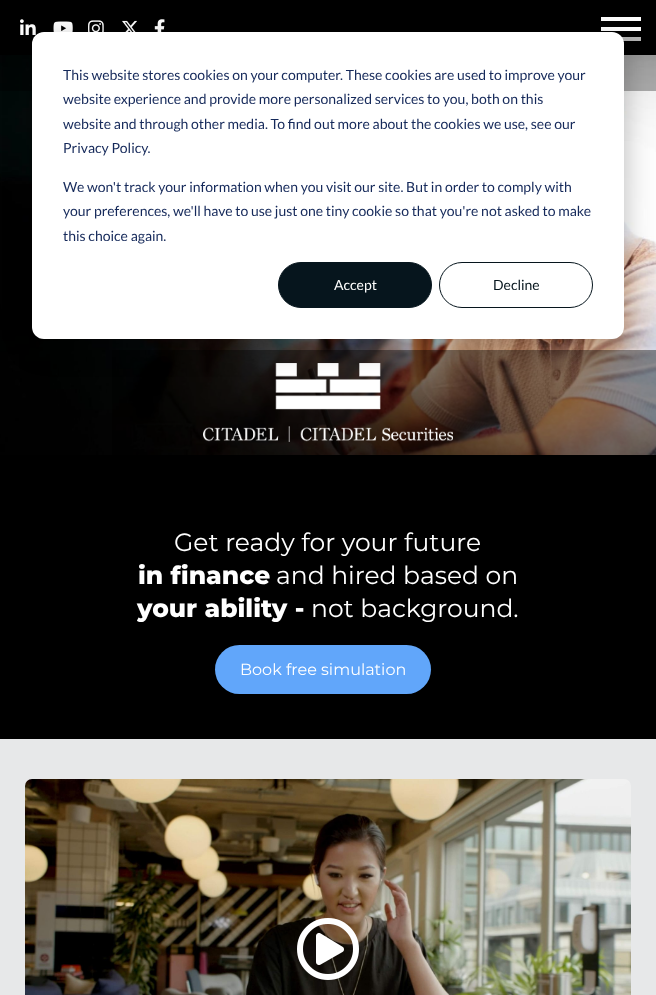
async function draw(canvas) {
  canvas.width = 656;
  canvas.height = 995;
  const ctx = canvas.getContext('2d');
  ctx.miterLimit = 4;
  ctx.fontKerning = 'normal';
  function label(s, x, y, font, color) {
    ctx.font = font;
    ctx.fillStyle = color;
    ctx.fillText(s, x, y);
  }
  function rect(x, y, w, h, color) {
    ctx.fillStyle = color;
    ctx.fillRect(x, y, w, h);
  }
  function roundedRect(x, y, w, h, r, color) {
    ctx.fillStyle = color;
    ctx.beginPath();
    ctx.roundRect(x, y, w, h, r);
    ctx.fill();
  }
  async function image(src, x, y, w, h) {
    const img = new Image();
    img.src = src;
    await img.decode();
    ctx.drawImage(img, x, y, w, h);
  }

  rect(0, 0, 656, 995, '#fff');
  await image('assets/img6.png', 0, 55, 656, 400);
  ctx.fillStyle = '#0000000d';
  ctx.filter = 'blur(7.5px)';
  ctx.beginPath();
  ctx.rect(0, 0, 656, 55);
  ctx.fill();
  ctx.filter = 'none';
  rect(0, 0, 656, 55, '#000');
  await image('assets/img1.png', 20, 19, 16, 16);
  await image('assets/img2.png', 53, 21, 20, 11);
  await image('assets/img3.png', 88, 20, 16, 12);
  await image('assets/img4.png', 122, 20, 15, 12);
  await image('assets/img5.png', 154, 19, 11, 13);
  rect(621, 37, 20, 4, '#b4b4b4');
  rect(601, 17, 40, 4, '#fff');
  rect(601, 27, 40, 4, '#fff');
  rect(112, 350, 544, 105, '#00000066');
  await image('assets/img7.png', 203, 363, 250, 79);
  rect(0, 55, 656, 36, '#0000004d');
  ctx.fillStyle = '#00000047';
  ctx.filter = 'blur(14px)';
  ctx.beginPath();
  ctx.roundRect(32, 40, 592, 307, 12);
  ctx.fill();
  ctx.filter = 'none';
  roundedRect(32, 32, 592, 307, 12, '#fff');
  label('This website stores cookies on your computer. These cookies are used to improve your', 63, 80, '14px Lato', '#15295a');
  label('website experience and provide more personalized services to you, both on this', 63, 104, '14px Lato', '#15295a');
  label('website and through other media. To find out more about the cookies we use, see our', 63, 129, '14px Lato', '#15295a');
  label('Privacy Policy.', 63, 153, '14px Lato', '#15295a');
  label('We won\'t track your information when you visit our site. But in order to comply with', 63, 192, '14px Lato', '#15295a');
  label('your preferences, we\'ll have to use just one tiny cookie so that you\'re not asked to make', 63, 216, '14px Lato', '#15295a');
  label('this choice again.', 63, 241, '14px Lato', '#15295a');
  ctx.fillStyle = '#06151d';
  ctx.beginPath();
  ctx.roundRect(278.5, 262.5, 153, 45, 22.5);
  ctx.fill();
  ctx.strokeStyle = '#06151d';
  ctx.stroke();
  label('Accept', 334, 290, '14px Lato', '#fff');
  ctx.beginPath();
  ctx.roundRect(439.5, 262.5, 153, 45, 22.5);
  ctx.stroke();
  label('Decline', 493, 290, '14px Lato', '#06151d');
  rect(0, 455, 656, 284, '#000');
  label('Get ready for your future', 174, 551, '25px Montserrat', '#fff');
  label('in finance', 138, 584, '800 25px Montserrat', '#fff');
  label('and hired based on', 276, 584, '25px Montserrat', '#fff');
  label('your ability -', 137, 617, '800 25px Montserrat', '#fff');
  label('not background.', 311, 617, '25px Montserrat', '#fff');
  roundedRect(215, 645, 216, 49, 24.5, '#61a6fa');
  label('Book free simulation', 240, 675, '16px Montserrat', '#fff');
  rect(0, 739, 656, 256, '#e7e8e9');
  await image('assets/img8.png', 25, 779, 606, 216);
  await image('assets/img9.png', 297, 918, 62, 62);
}

draw(document.querySelector('canvas'));
